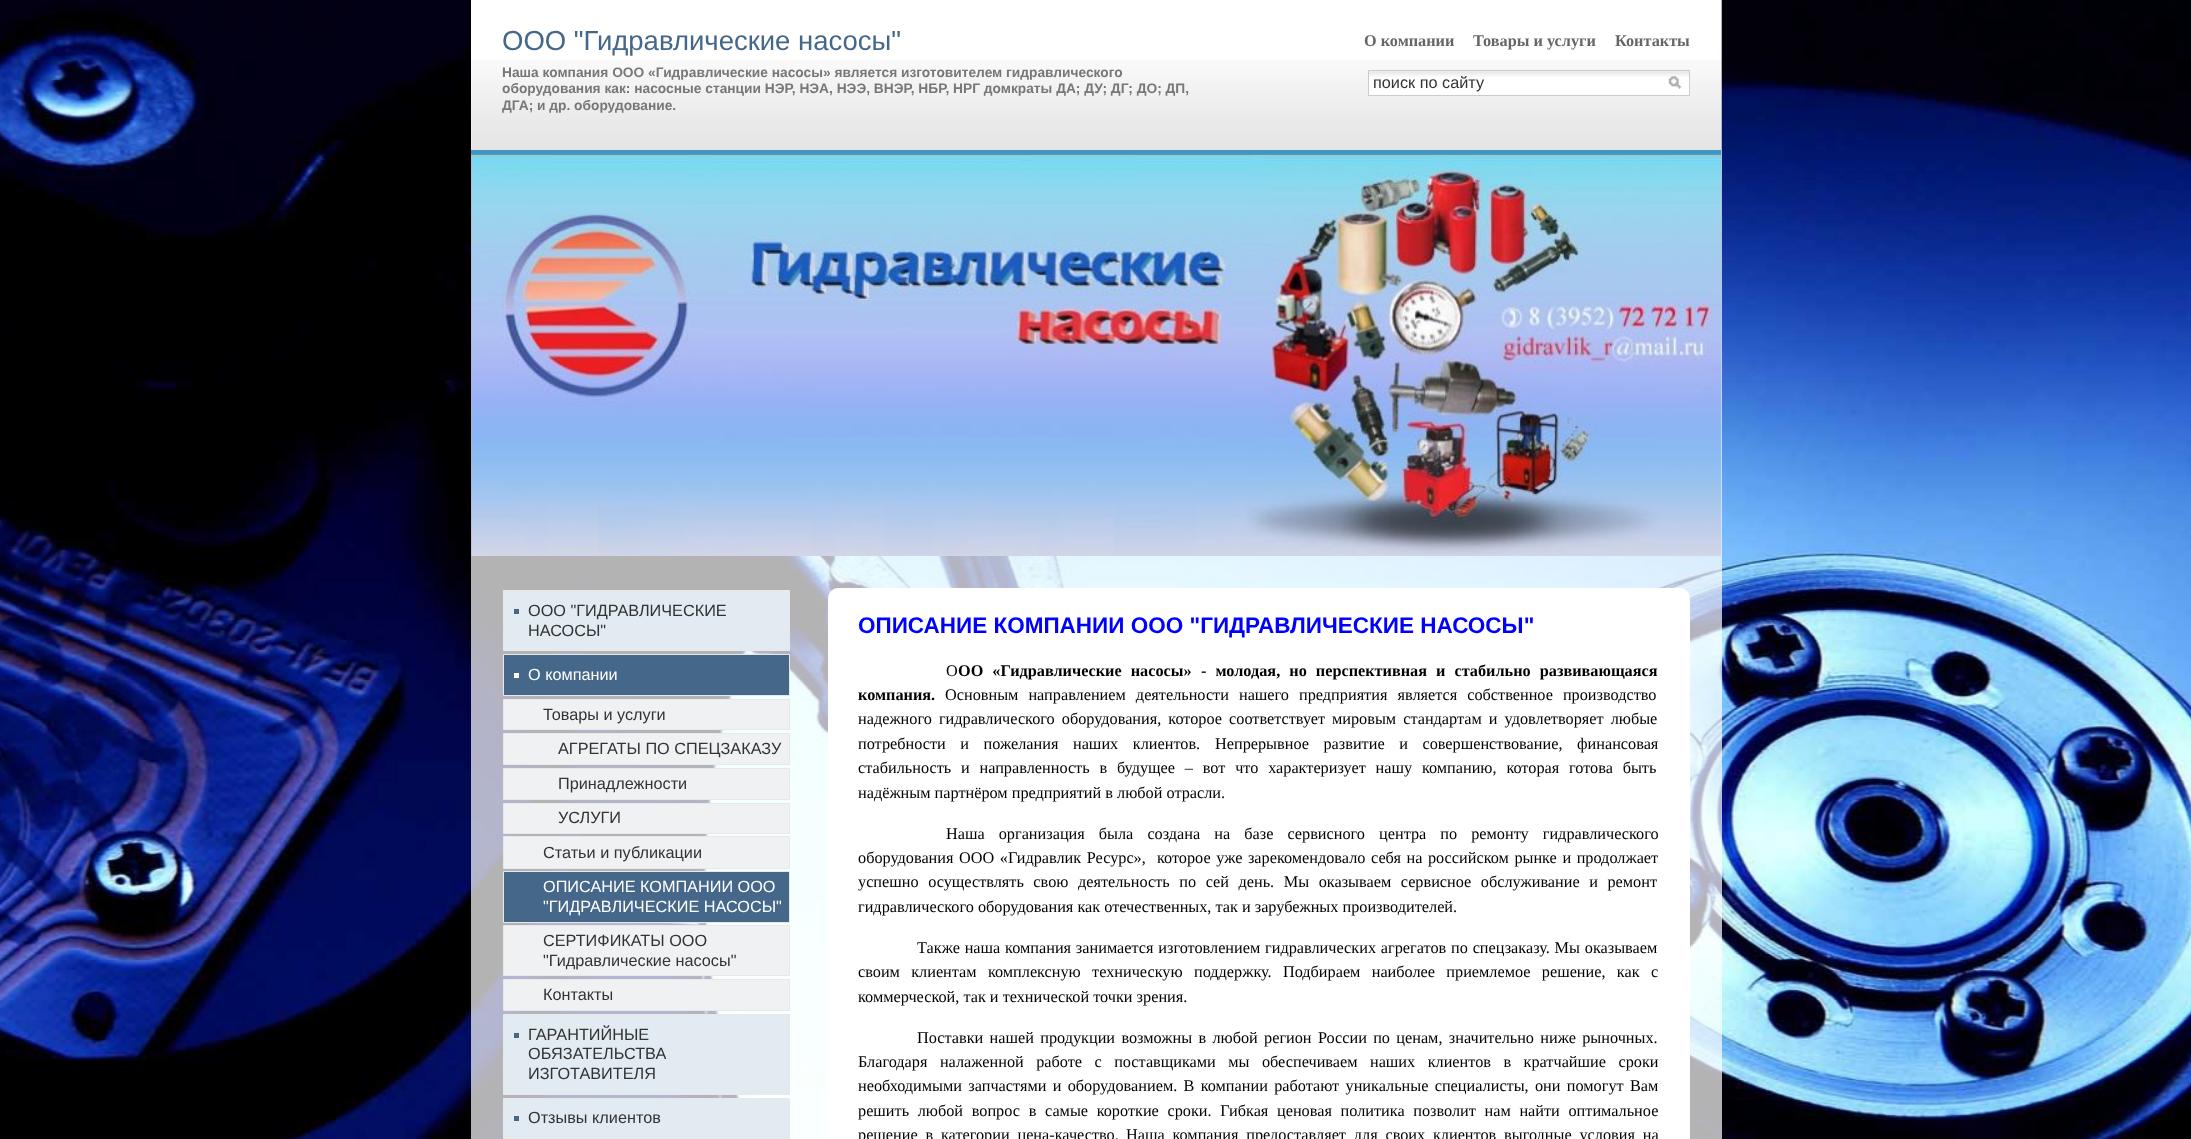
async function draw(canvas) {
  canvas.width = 2191;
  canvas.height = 1139;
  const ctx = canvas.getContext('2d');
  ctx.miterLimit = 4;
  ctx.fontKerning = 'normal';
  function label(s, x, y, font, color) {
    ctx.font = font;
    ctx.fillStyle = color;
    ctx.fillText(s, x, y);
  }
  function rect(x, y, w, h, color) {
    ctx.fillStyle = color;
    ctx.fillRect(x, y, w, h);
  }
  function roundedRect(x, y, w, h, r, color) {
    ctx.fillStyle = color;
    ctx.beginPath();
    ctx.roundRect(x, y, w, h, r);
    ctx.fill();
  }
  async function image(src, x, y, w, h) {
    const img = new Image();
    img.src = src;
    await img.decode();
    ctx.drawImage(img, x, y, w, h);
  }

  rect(0, 0, 2191, 1139, '#fff');
  await image('assets/img1.png', 0, 0, 2191, 1139);
  rect(471, 0, 1251, 1139, '#ffffffb3');
  rect(471, 0, 1250, 150, '#fff');
  await image('assets/img2.png', 471, 60, 1251, 90);
  rect(471, 150, 1250, 4, '#3f96c4');
  label('ООО "Гидравлические насосы"', 502, 50, '27.5px Liberation Sans', '#456789');
  label('Наша компания ООО «Гидравлические насосы» является изготовителем гидравлического', 502, 77, 'bold 13.75px Liberation Sans', '#777');
  label('оборудования как: насосные станции НЭР, НЭА, НЭЭ, ВНЭР, НБР, НРГ домкраты ДА; ДУ; ДГ; ДО; ДП,', 502, 93, 'bold 13.75px Liberation Sans', '#777');
  label('ДГА; и др. оборудование.', 502, 110, 'bold 13.75px Liberation Sans', '#777');
  label('О компании', 1364, 46, 'bold 16.25px Liberation Serif', '#666');
  label('Товары и услуги', 1473, 46, 'bold 16.25px Liberation Serif', '#666');
  label('Контакты', 1615, 46, 'bold 16.25px Liberation Serif', '#666');
  rect(1369, 71, 320, 24, '#fff');
  await image('assets/img3.png', 1367, 71, 322, 6);
  ctx.strokeStyle = '#ccc';
  ctx.strokeRect(1368.5, 70.5, 321, 25);
  label('поиск по сайту', 1373, 88, '16.25px Liberation Sans', '#333');
  await image('assets/img4.png', 1668, 76, 14, 13);
  await image('assets/img5.png', 471, 154, 1251, 402);
  ctx.fillStyle = '#e1ebf1';
  ctx.beginPath();
  ctx.rect(503.5, 590.5, 286, 60);
  ctx.fill();
  ctx.strokeStyle = '#e8e8e8';
  ctx.stroke();
  rect(514, 609, 5, 5, '#456789');
  label('ООО "ГИДРАВЛИЧЕСКИЕ', 528, 616, '16.25px Liberation Sans', '#333');
  label('НАСОСЫ"', 528, 636, '16.25px Liberation Sans', '#333');
  ctx.fillStyle = '#456789';
  ctx.beginPath();
  ctx.rect(503.5, 654.5, 286, 41);
  ctx.fill();
  ctx.stroke();
  rect(514, 673, 5, 5, '#fff');
  label('О компании', 528, 680, '16.25px Liberation Sans', '#fff');
  ctx.fillStyle = '#f0f1f2';
  ctx.beginPath();
  ctx.rect(503.5, 699.5, 286, 30);
  ctx.fill();
  ctx.stroke();
  label('Товары и услуги', 543, 720, '16.25px Liberation Sans', '#333');
  ctx.fillStyle = '#f0f1f2';
  ctx.beginPath();
  ctx.rect(503.5, 733.5, 286, 31);
  ctx.fill();
  ctx.stroke();
  label('АГРЕГАТЫ ПО СПЕЦЗАКАЗУ', 558, 754, '16.25px Liberation Sans', '#333');
  ctx.fillStyle = '#f0f1f2';
  ctx.beginPath();
  ctx.rect(503.5, 768.5, 286, 31);
  ctx.fill();
  ctx.stroke();
  label('Принадлежности', 558, 789, '16.25px Liberation Sans', '#333');
  ctx.fillStyle = '#f0f1f2';
  ctx.beginPath();
  ctx.rect(503.5, 803.5, 286, 30);
  ctx.fill();
  ctx.stroke();
  label('УСЛУГИ', 558, 823, '16.25px Liberation Sans', '#333');
  ctx.fillStyle = '#f0f1f2';
  ctx.beginPath();
  ctx.rect(503.5, 836.5, 286, 32);
  ctx.fill();
  ctx.stroke();
  label('Статьи и публикации', 543, 858, '16.25px Liberation Sans', '#333');
  ctx.fillStyle = '#456789';
  ctx.beginPath();
  ctx.rect(503.5, 871.5, 286, 51);
  ctx.fill();
  ctx.stroke();
  label('ОПИСАНИЕ КОМПАНИИ ООО', 543, 892, '16.25px Liberation Sans', '#fff');
  label('"ГИДРАВЛИЧЕСКИЕ НАСОСЫ"', 543, 912, '16.25px Liberation Sans', '#fff');
  ctx.fillStyle = '#f0f1f2';
  ctx.beginPath();
  ctx.rect(503.5, 925.5, 286, 50);
  ctx.fill();
  ctx.stroke();
  label('СЕРТИФИКАТЫ ООО', 543, 946, '16.25px Liberation Sans', '#333');
  label('"Гидравлические насосы"', 543, 966, '16.25px Liberation Sans', '#333');
  ctx.fillStyle = '#f0f1f2';
  ctx.beginPath();
  ctx.rect(503.5, 979.5, 286, 31);
  ctx.fill();
  ctx.stroke();
  label('Контакты', 543, 1000, '16.25px Liberation Sans', '#333');
  ctx.fillStyle = '#e1ebf1';
  ctx.beginPath();
  ctx.rect(503.5, 1014.5, 286, 80);
  ctx.fill();
  ctx.stroke();
  rect(514, 1033, 5, 5, '#456789');
  label('ГАРАНТИЙНЫЕ', 528, 1040, '16.25px Liberation Sans', '#333');
  label('ОБЯЗАТЕЛЬСТВА', 528, 1059, '16.25px Liberation Sans', '#333');
  label('ИЗГОТАВИТЕЛЯ', 528, 1079, '16.25px Liberation Sans', '#333');
  ctx.fillStyle = '#e1ebf1';
  ctx.beginPath();
  ctx.rect(503.5, 1098.5, 286, 40);
  ctx.fill();
  ctx.stroke();
  rect(514, 1116, 5, 5, '#456789');
  label('Отзывы клиентов', 528, 1123, '16.25px Liberation Sans', '#333');
  roundedRect(828, 588, 862, 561, 10, '#fff');
  label('ОПИСАНИЕ КОМПАНИИ ООО "ГИДРАВЛИЧЕСКИЕ НАСОСЫ"', 858, 633, 'bold 22.5px Liberation Sans', '#00f');
  label('О', 946, 676, '16.25px Liberation Serif', '#000');
  ctx.wordSpacing = '5px';
  label('ОО «Гидравлические насосы»', 958, 676, 'bold 16.25px Liberation Serif', '#000');
  label('- молодая, но перспективная и стабильно развивающаяся', 1201, 676, 'bold 16.25px Liberation Serif', '#000');
  ctx.wordSpacing = '0px';
  label('компания.', 858, 700, 'bold 16.25px Liberation Serif', '#000');
  ctx.wordSpacing = '6px';
  label('Основным направлением деятельности нашего предприятия является собственное производство', 945, 700, '16.25px Liberation Serif', '#000');
  ctx.wordSpacing = '3px';
  label('надежного гидравлического оборудования, которое соответствует', 858, 724, '16.25px Liberation Serif', '#000');
  label('мировым стандартам и удовлетворяет любые', 1332, 724, '16.25px Liberation Serif', '#000');
  ctx.wordSpacing = '10.5px';
  label('потребности и пожелания наших клиентов.', 858, 749, '16.25px Liberation Serif', '#000');
  label('Непрерывное развитие и совершенствование, финансовая', 1215, 749, '16.25px Liberation Serif', '#000');
  ctx.wordSpacing = '5.75px';
  label('стабильность и направленность в будущее – вот что характеризует нашу компанию, которая готова быть', 858, 773, '16.25px Liberation Serif', '#000');
  ctx.wordSpacing = '0px';
  label('надёжным партнёром предприятий в любой отрасли.', 858, 798, '16.25px Liberation Serif', '#000');
  ctx.wordSpacing = '10px';
  label('Наша организация была создана на базе сервисного центра по ремонту гидравлического', 946, 839, '16.25px Liberation Serif', '#000');
  ctx.wordSpacing = '1.5px';
  label('оборудования ООО «Гидравлик Ресурс»,', 858, 863, '16.25px Liberation Serif', '#000');
  label('которое уже зарекомендовало себя на российском рынке и продолжает', 1157, 863, '16.25px Liberation Serif', '#000');
  ctx.wordSpacing = '5.5px';
  label('успешно осуществлять свою деятельность по сей день. Мы оказываем сервисное обслуживание и ремонт', 858, 887, '16.25px Liberation Serif', '#000');
  ctx.wordSpacing = '0px';
  label('гидравлического оборудования как отечественных, так и зарубежных производителей.', 858, 912, '16.25px Liberation Serif', '#000');
  ctx.wordSpacing = '0.75px';
  label('Также наша компания занимается изготовлением гидравлических агрегатов по спецзаказу. Мы оказываем', 917, 953, '16.25px Liberation Serif', '#000');
  ctx.wordSpacing = '7.25px';
  label('своим клиентам комплексную техническую поддержку. Подбираем наиболее приемлемое решение, как с', 858, 977, '16.25px Liberation Serif', '#000');
  ctx.wordSpacing = '0px';
  label('коммерческой, так и технической точки зрения.', 858, 1002, '16.25px Liberation Serif', '#000');
  ctx.wordSpacing = '2.25px';
  label('Поставки нашей продукции возможны в любой регион России по ценам, значительно ниже рыночных.', 917, 1043, '16.25px Liberation Serif', '#000');
  ctx.wordSpacing = '8.4px';
  label('Благодаря налаженной работе с поставщиками мы обеспечиваем наших клиентов в кратчайшие сроки', 858, 1067, '16.25px Liberation Serif', '#000');
  ctx.wordSpacing = '2.25px';
  label('необходимыми запчастями и оборудованием. В компании работают уникальные специалисты, они помогут Вам', 858, 1091, '16.25px Liberation Serif', '#000');
  ctx.wordSpacing = '4.6px';
  label('решить любой вопрос в самые короткие сроки. Гибкая ценовая политика позволит нам найти оптимальное', 858, 1116, '16.25px Liberation Serif', '#000');
  ctx.wordSpacing = '3.75px';
  label('решение в категории цена-качество.', 858, 1140, '16.25px Liberation Serif', '#000');
  label('Наша компания предоставляет для своих клиентов выгодные условия на', 1126, 1140, '16.25px Liberation Serif', '#000');
}

draw(document.querySelector('canvas'));
